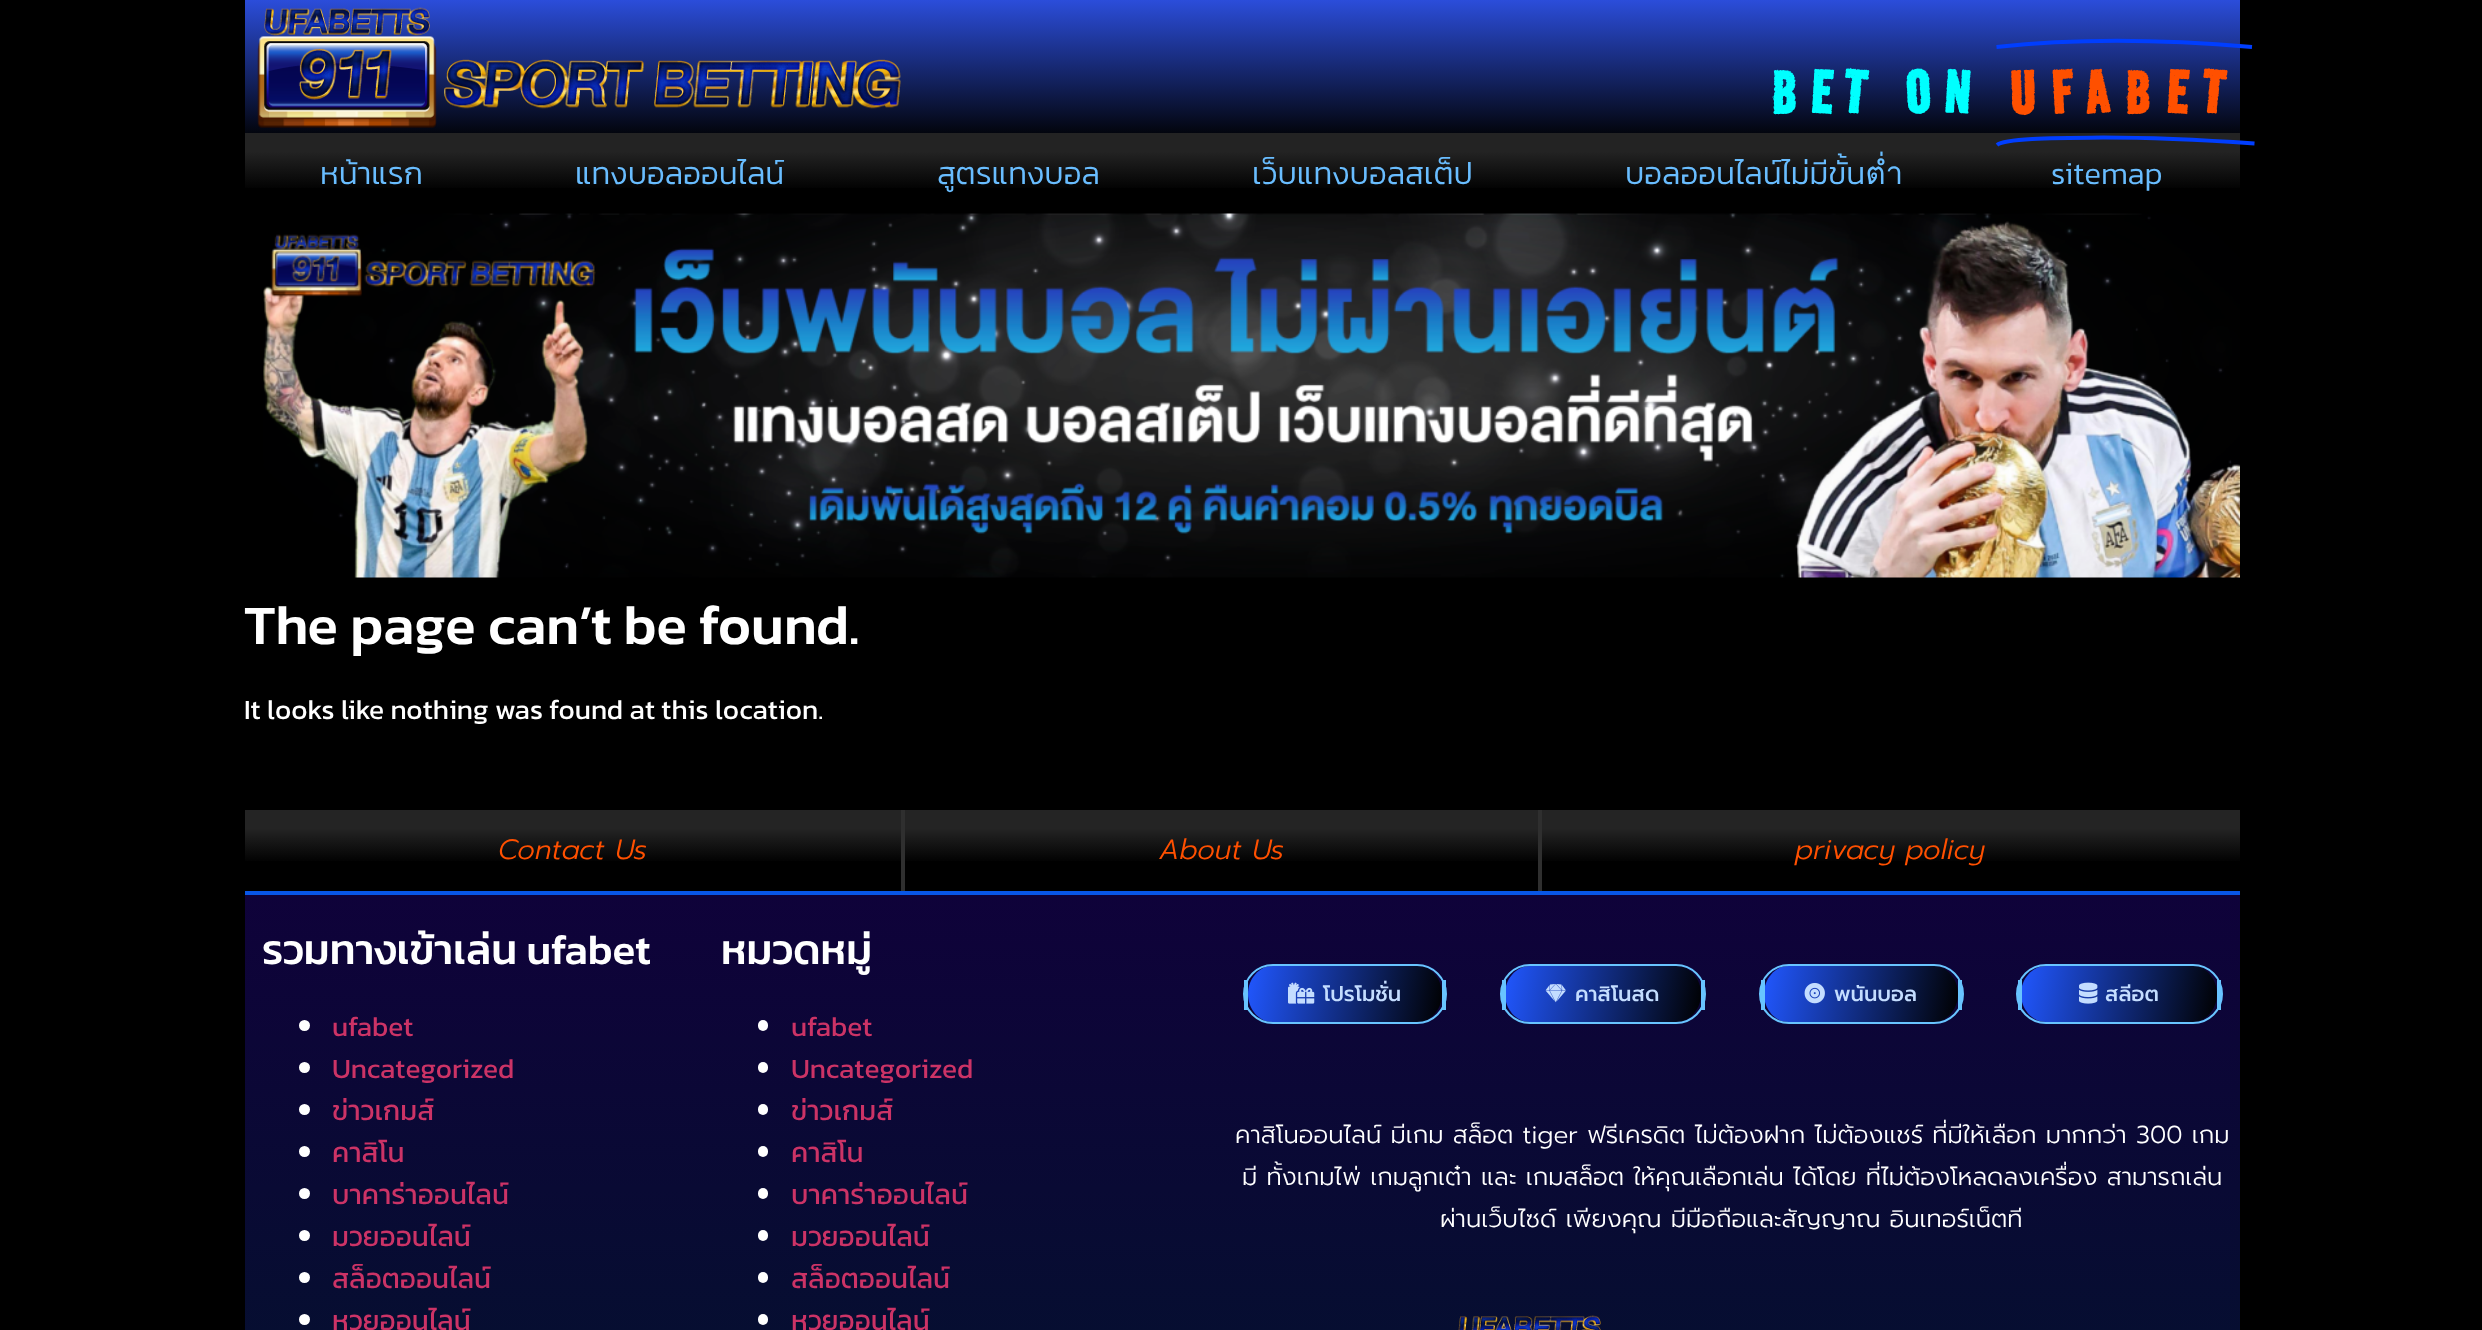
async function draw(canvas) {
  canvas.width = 2482;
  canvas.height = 1330;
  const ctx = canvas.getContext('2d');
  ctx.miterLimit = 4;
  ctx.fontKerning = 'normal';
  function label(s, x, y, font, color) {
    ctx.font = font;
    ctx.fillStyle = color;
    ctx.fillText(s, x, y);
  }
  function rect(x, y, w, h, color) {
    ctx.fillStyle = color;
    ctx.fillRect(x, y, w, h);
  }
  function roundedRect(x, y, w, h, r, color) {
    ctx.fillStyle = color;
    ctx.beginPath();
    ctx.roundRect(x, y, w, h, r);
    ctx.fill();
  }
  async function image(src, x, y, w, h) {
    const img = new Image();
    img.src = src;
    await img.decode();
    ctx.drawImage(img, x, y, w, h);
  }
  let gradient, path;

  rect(0, 0, 2482, 1330, '#000');
  gradient = ctx.createLinearGradient(1243, 0, 1243, 142);
  gradient.addColorStop(0, '#2b4dda');
  gradient.addColorStop(1, '#000');
  ctx.fillStyle = gradient;
  ctx.fillRect(245, 0, 1995, 133);
  await image('assets/img1.png', 257, 7, 644, 121);
  ctx.letterSpacing = '13.75px';
  label('BET ON', 1771, 113, 'bold 70px Road Rage', '#0ff');
  gradient = ctx.createLinearGradient(1243, 133, 1243, 214);
  gradient.addColorStop(0.23, '#232323');
  gradient.addColorStop(0.72, '#000');
  ctx.fillStyle = gradient;
  ctx.fillRect(245, 133, 1995, 55);
  path = new Path2D('M1997 145C2004.5 138.5 2048.5 138 2103 137.5C2167.5 137.5 2254.5 143.5 2254.5 143.5');
  ctx.strokeStyle = '#003eff';
  ctx.lineWidth = 3.9;
  ctx.stroke(path);
  path = new Path2D('M1996.5 47C2081.5 37.5 2167 39.5 2252 47');
  ctx.stroke(path);
  ctx.letterSpacing = '16px';
  label('UFABET', 2010, 113, 'bold 70px Road Rage', '#ff5000');
  ctx.letterSpacing = '0px';
  label('หน้าแรก', 320, 184, '300 31.5px Kanit', '#69bdff');
  label('แทงบอลออนไลน์', 575, 184, '300 31.5px Kanit', '#69bdff');
  label('สูตรแทงบอล', 937, 184, '300 31.5px Kanit', '#69bdff');
  label('เว็บแทงบอลสเต็ป', 1252, 184, '300 31.5px Kanit', '#69bdff');
  label('บอลออนไลน์ไม่มีขั้นต่ำ', 1625, 184, '300 31.5px Kanit', '#69bdff');
  label('sitemap', 2051, 184, '300 31.5px Kanit', '#69bdff');
  await image('assets/img2.png', 263, 213, 1977, 365);
  label('The page can’t be found.', 244, 644, '500 56px Kanit', '#fff');
  label('It looks like nothing was found at this location.', 244, 719, '28px Kanit', '#fff');
  gradient = ctx.createLinearGradient(1243, 810, 1243, 891);
  gradient.addColorStop(0.23, '#242424');
  gradient.addColorStop(0.66, '#000');
  ctx.fillStyle = gradient;
  ctx.fillRect(245, 810, 1995, 51);
  label('Contact Us', 498, 859, 'italic 300 28px Prompt', '#ff5000');
  rect(901, 810, 4, 81, '#2f2f2f');
  label('About Us', 1159, 859, 'italic 300 28px Prompt', '#ff5000');
  rect(1538, 810, 4, 81, '#2f2f2f');
  label('privacy policy', 1795, 859, 'italic 300 28px Prompt', '#ff5000');
  gradient = ctx.createLinearGradient(1243, 894, 1243, 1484);
  gradient.addColorStop(0, '#0f023a');
  gradient.addColorStop(1, '#03122e');
  ctx.fillStyle = gradient;
  ctx.fillRect(245, 895, 1995, 435);
  rect(245, 891, 1995, 4, '#0856e7');
  label('รวมทางเข้าเล่น ufabet', 262, 964, '500 42px Kanit', '#fff');
  ctx.beginPath();
  ctx.arc(304.5, 1025.5, 5.5, 0, 2 * Math.PI);
  ctx.fill();
  label('ufabet', 332, 1036, '28px Kanit', '#c36');
  ctx.fillStyle = '#fff';
  ctx.beginPath();
  ctx.arc(304.5, 1067.5, 5.5, 0, 2 * Math.PI);
  ctx.fill();
  label('Uncategorized', 332, 1078, '28px Kanit', '#c36');
  ctx.fillStyle = '#fff';
  ctx.beginPath();
  ctx.arc(304.5, 1109.5, 5.5, 0, 2 * Math.PI);
  ctx.fill();
  label('ข่าวเกมส์', 332, 1120, '28px Kanit', '#c36');
  ctx.fillStyle = '#fff';
  ctx.beginPath();
  ctx.arc(304.5, 1151.5, 5.5, 0, 2 * Math.PI);
  ctx.fill();
  label('คาสิโน', 332, 1162, '28px Kanit', '#c36');
  ctx.fillStyle = '#fff';
  ctx.beginPath();
  ctx.arc(304.5, 1193.5, 5.5, 0, 2 * Math.PI);
  ctx.fill();
  label('บาคาร่าออนไลน์', 332, 1204, '28px Kanit', '#c36');
  ctx.fillStyle = '#fff';
  ctx.beginPath();
  ctx.arc(304.5, 1235.5, 5.5, 0, 2 * Math.PI);
  ctx.fill();
  label('มวยออนไลน์', 332, 1246, '28px Kanit', '#c36');
  ctx.fillStyle = '#fff';
  ctx.beginPath();
  ctx.arc(304.5, 1277.5, 5.5, 0, 2 * Math.PI);
  ctx.fill();
  label('สล็อตออนไลน์', 332, 1288, '28px Kanit', '#c36');
  ctx.fillStyle = '#fff';
  ctx.beginPath();
  ctx.arc(304.5, 1319.5, 5.5, 0, 2 * Math.PI);
  ctx.fill();
  label('หวยออนไลน์', 332, 1330, '28px Kanit', '#c36');
  label('หมวดหมู่', 721, 964, '500 42px Kanit', '#fff');
  roundedRect(758, 1020, 10, 11, 5, '#fff');
  label('ufabet', 791, 1036, '28px Kanit', '#c36');
  roundedRect(758, 1062, 10, 11, 5, '#fff');
  label('Uncategorized', 791, 1078, '28px Kanit', '#c36');
  roundedRect(758, 1104, 10, 11, 5, '#fff');
  label('ข่าวเกมส์', 791, 1120, '28px Kanit', '#c36');
  roundedRect(758, 1146, 10, 11, 5, '#fff');
  label('คาสิโน', 791, 1162, '28px Kanit', '#c36');
  roundedRect(758, 1188, 10, 11, 5, '#fff');
  label('บาคาร่าออนไลน์', 791, 1204, '28px Kanit', '#c36');
  roundedRect(758, 1230, 10, 11, 5, '#fff');
  label('มวยออนไลน์', 791, 1246, '28px Kanit', '#c36');
  roundedRect(758, 1272, 10, 11, 5, '#fff');
  label('สล็อตออนไลน์', 791, 1288, '28px Kanit', '#c36');
  roundedRect(758, 1314, 10, 11, 5, '#fff');
  label('หวยออนไลน์', 791, 1330, '28px Kanit', '#c36');
  gradient = ctx.createLinearGradient(1246, 977, 1444, 1011);
  gradient.addColorStop(0, '#2157ff');
  gradient.addColorStop(1, '#000');
  ctx.fillStyle = gradient;
  path = new Path2D('M1272 966H1418C1431 966 1442 979 1442 994C1442 1009 1431 1022 1418 1022H1272C1259 1022 1248 1009 1248 994C1248 979 1259 966 1272 966Z');
  ctx.fill(path);
  ctx.beginPath();
  ctx.roundRect(1244, 965, 202, 58, 29);
  ctx.strokeStyle = '#68c4ff';
  ctx.lineWidth = 2;
  ctx.stroke();
  rect(1442, 980, 4, 30, '#68c4ff');
  rect(1244, 980, 4, 30, '#68c4ff');
  await image('assets/img3.png', 1288, 982, 27, 22);
  label('โปรโมชั่น', 1323, 1001, '500 21px Prompt', '#c4ddff');
  gradient = ctx.createLinearGradient(1503, 976, 1703, 1012);
  gradient.addColorStop(0, '#2157ff');
  gradient.addColorStop(1, '#000');
  ctx.fillStyle = gradient;
  path = new Path2D('M1530 966H1676C1690 966 1701 979 1701 994C1701 1009 1690 1022 1676 1022H1530C1516 1022 1505 1009 1505 994C1505 979 1516 966 1530 966Z');
  ctx.fill(path);
  ctx.beginPath();
  ctx.roundRect(1501, 965, 204, 58, 29);
  ctx.stroke();
  rect(1701, 980, 4, 30, '#68c4ff');
  rect(1502, 980, 4, 30, '#68c4ff');
  await image('assets/img4.png', 1545, 984, 21, 19);
  label('คาสิโนสด', 1575, 1001, '500 21px Prompt', '#c4ddff');
  gradient = ctx.createLinearGradient(1762, 977, 1960, 1011);
  gradient.addColorStop(0, '#2157ff');
  gradient.addColorStop(1, '#000');
  ctx.fillStyle = gradient;
  path = new Path2D('M1788 966H1934C1947 966 1958 979 1958 994C1958 1009 1947 1022 1934 1022H1788C1775 1022 1764 1009 1764 994C1764 979 1775 966 1788 966Z');
  ctx.fill(path);
  ctx.beginPath();
  ctx.roundRect(1760, 965, 203, 58, 29);
  ctx.stroke();
  rect(1958, 980, 4, 30, '#68c4ff');
  rect(1761, 980, 4, 30, '#68c4ff');
  await image('assets/img5.png', 1804, 983, 21, 21);
  label('พนันบอล', 1834, 1001, '500 21px Prompt', '#c4ddff');
  gradient = ctx.createLinearGradient(2019, 976, 2219, 1012);
  gradient.addColorStop(0, '#2157ff');
  gradient.addColorStop(1, '#000');
  ctx.fillStyle = gradient;
  path = new Path2D('M2046 966H2193C2206 966 2217 979 2217 994C2217 1009 2206 1022 2193 1022H2046C2032 1022 2021 1009 2021 994C2021 979 2032 966 2046 966Z');
  ctx.fill(path);
  ctx.beginPath();
  ctx.roundRect(2017, 965, 205, 58, 29);
  ctx.stroke();
  rect(2217, 980, 4, 30, '#68c4ff');
  rect(2018, 980, 4, 30, '#68c4ff');
  await image('assets/img6.png', 2079, 982, 19, 22);
  label('สลีอต', 2105, 1001, '500 21px Prompt', '#c4ddff');
  label('คาสิโนออนไลน์ มีเกม สล็อต tiger ฟรีเครดิต ไม่ต้องฝาก ไม่ต้องแชร์ ที่มีให้เลือก มากกว่า 300 เกม', 1235, 1143, '300 24.5px Prompt', '#fff');
  label('มี ทั้งเกมไพ่ เกมลูกเต๋า และ เกมสล็อต ให้คุณเลือกเล่น ได้โดย ที่ไม่ต้องโหลดลงเครื่อง สามารถเล่น', 1242, 1185, '300 24.5px Prompt', '#fff');
  label('ผ่านเว็บไซด์ เพียงคุณ มีมือถือและสัญญาณ อินเทอร์เน็ตที', 1440, 1227, '300 24.5px Prompt', '#fff');
  await image('assets/img7.png', 1458, 1315, 143, 15);
}

draw(document.querySelector('canvas'));
